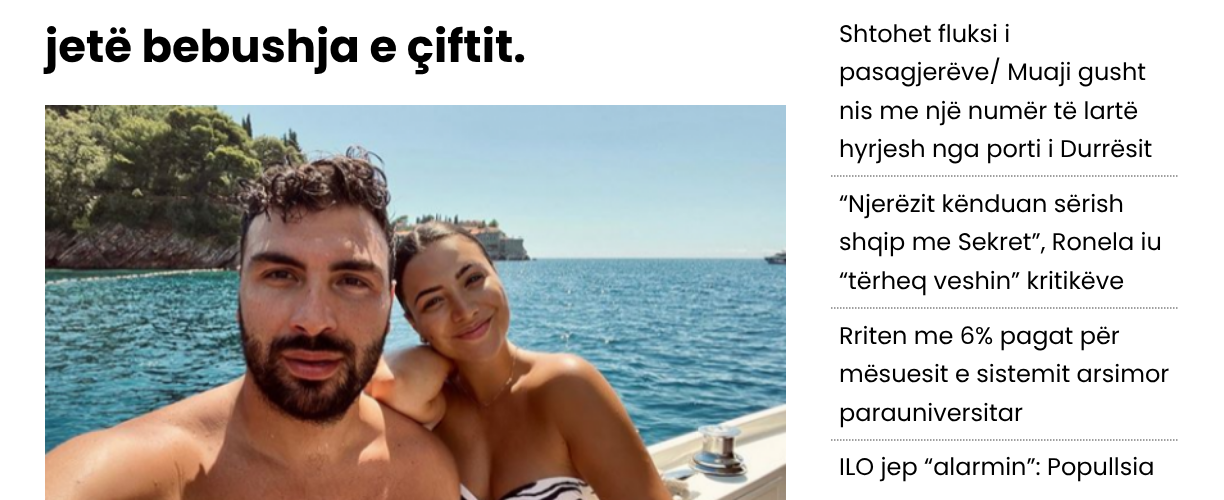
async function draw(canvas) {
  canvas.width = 1224;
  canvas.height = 500;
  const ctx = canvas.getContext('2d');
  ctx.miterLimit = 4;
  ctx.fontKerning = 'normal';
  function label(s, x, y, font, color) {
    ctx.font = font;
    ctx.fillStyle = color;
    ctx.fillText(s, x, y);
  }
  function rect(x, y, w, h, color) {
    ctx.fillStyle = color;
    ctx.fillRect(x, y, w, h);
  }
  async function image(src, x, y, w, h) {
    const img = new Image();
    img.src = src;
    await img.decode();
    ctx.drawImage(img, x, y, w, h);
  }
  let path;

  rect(0, 0, 1224, 500, '#fff');
  label('jetë bebushja e çiftit.', 45, 62, 'bold 45px Poppins', '#000');
  await image('assets/img1.png', 45, 105, 741, 395);
  path = new Path2D('M831 176H1179');
  ctx.strokeStyle = '#808080';
  ctx.lineWidth = 1.5;
  ctx.setLineDash([1.5, 1.5]);
  ctx.stroke(path);
  label('Shtohet fluksi i', 839, 42, '24px Poppins', '#000');
  label('pasagjerëve/ Muaji gusht', 839, 80, '24px Poppins', '#000');
  label('nis me një numër të lartë', 839, 119, '24px Poppins', '#000');
  label('hyrjesh nga porti i Durrësit', 839, 157, '24px Poppins', '#000');
  path = new Path2D('M831 308H1179');
  ctx.stroke(path);
  label('“Njerëzit kënduan sërish', 839, 212, '24px Poppins', '#000');
  label('shqip me Sekret”, Ronela iu', 839, 250, '24px Poppins', '#000');
  label('“tërheq veshin” kritikëve', 839, 289, '24px Poppins', '#000');
  path = new Path2D('M831 440H1179');
  ctx.stroke(path);
  label('Rriten me 6% pagat për', 839, 344, '24px Poppins', '#000');
  label('mësuesit e sistemit arsimor', 839, 382, '24px Poppins', '#000');
  label('parauniversitar', 839, 421, '24px Poppins', '#000');
  label('ILO jep “alarmin”: Popullsia', 839, 475, '24px Poppins', '#000');
}

draw(document.querySelector('canvas'));
